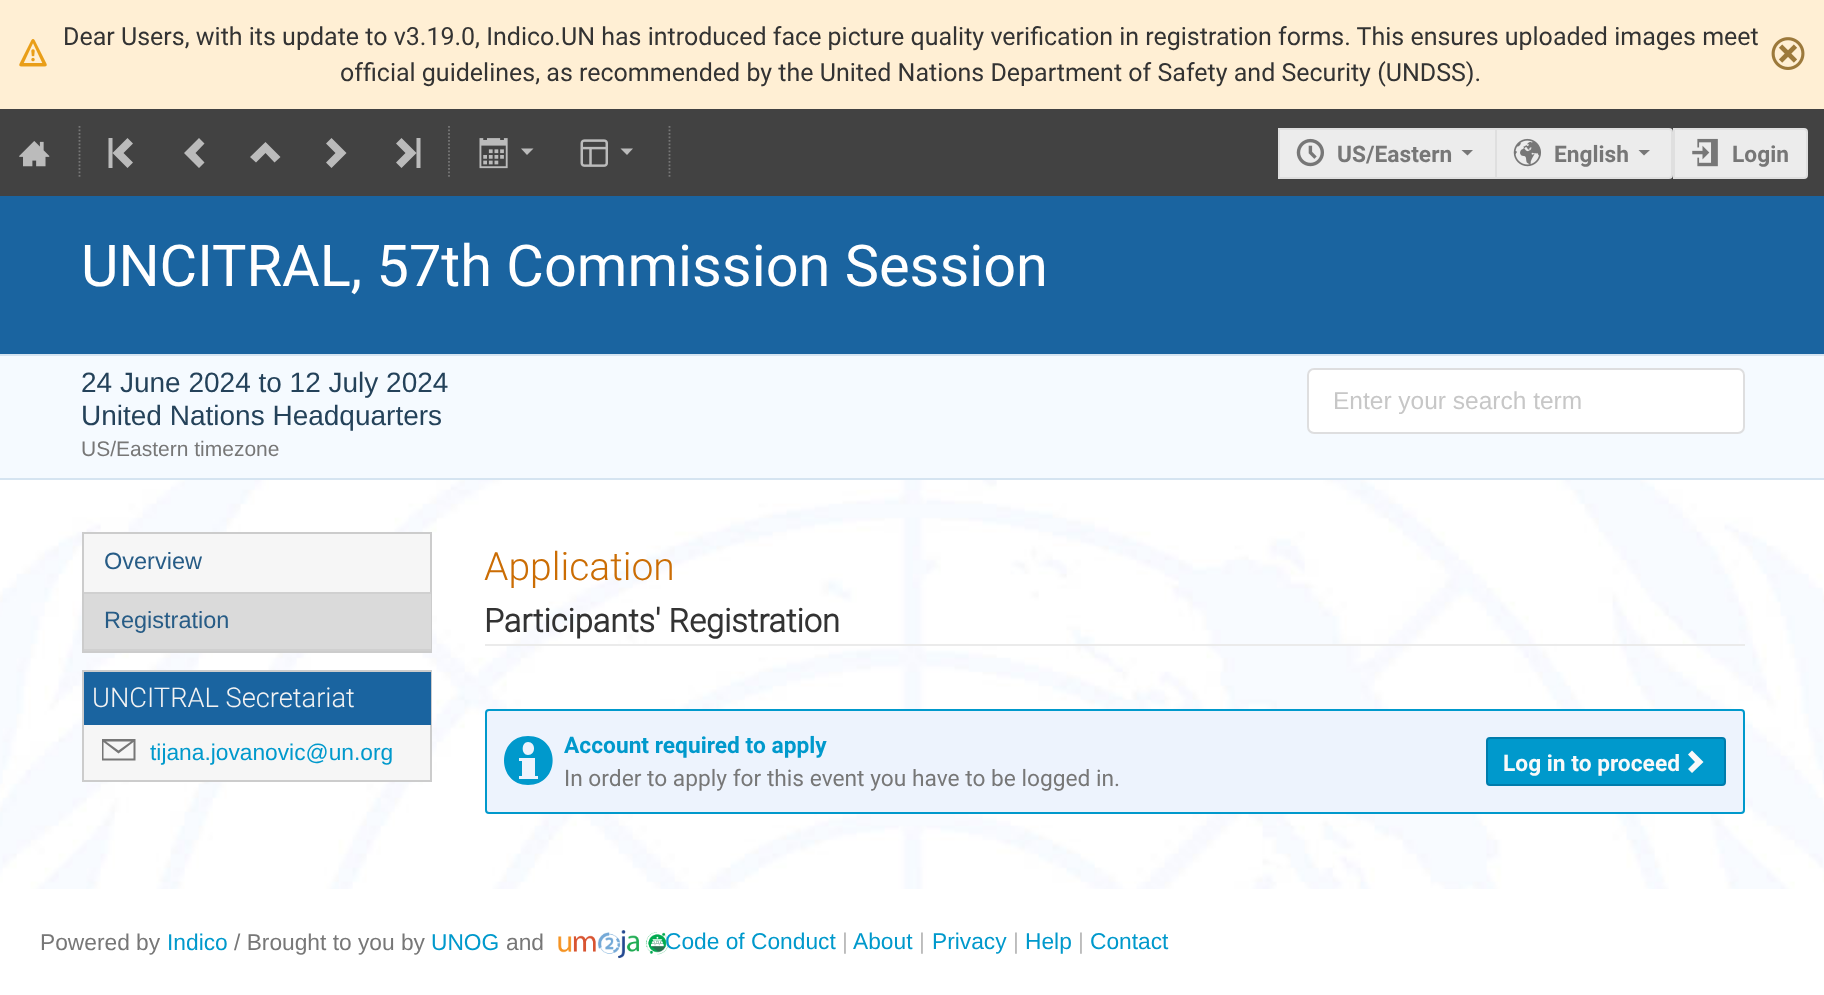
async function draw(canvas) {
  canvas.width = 1824;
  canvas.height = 995;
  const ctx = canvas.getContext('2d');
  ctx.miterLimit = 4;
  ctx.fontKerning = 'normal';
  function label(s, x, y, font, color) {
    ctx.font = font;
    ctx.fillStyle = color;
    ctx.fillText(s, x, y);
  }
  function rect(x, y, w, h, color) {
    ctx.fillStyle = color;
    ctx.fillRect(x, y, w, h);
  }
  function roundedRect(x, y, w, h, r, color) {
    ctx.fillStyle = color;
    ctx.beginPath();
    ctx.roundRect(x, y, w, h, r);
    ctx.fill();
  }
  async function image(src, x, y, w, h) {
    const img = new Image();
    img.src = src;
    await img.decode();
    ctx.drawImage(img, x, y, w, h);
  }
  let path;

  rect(0, 0, 1824, 995, '#fff');
  rect(0, 0, 1824, 109, '#ffefd4');
  await image('assets/img1.png', 19, 39, 28, 28);
  label('Dear Users, with its update to v3.19.0, Indico.UN has introduced face picture quality verification in registration forms. This ensures uploaded images meet', 63, 45, '25.03px Roboto', '#333');
  label('official guidelines, as recommended by the United Nations Department of Safety and Security (UNDSS).', 340, 81, '25.03px Roboto', '#333');
  await image('assets/img2.png', 1771, 37, 34, 33);
  rect(0, 109, 1824, 87, '#424242');
  await image('assets/img3.png', 19, 141, 31, 26);
  path = new Path2D('M79.5 126V178.5');
  ctx.strokeStyle = '#777';
  ctx.lineWidth = 1.8;
  ctx.setLineDash([1.75, 1.75]);
  ctx.stroke(path);
  ctx.fillStyle = '#bbb';
  path = new Path2D('M133 143.5L127.5 138L112.5 153L127.5 168L133 162.5L123.5 153ZM108.5 138V168H112.5V138Z');
  ctx.fill(path);
  path = new Path2D('M199 168L204.5 162.5L195.5 153L204.5 143.5L199 138L184 153Z');
  ctx.fill(path);
  path = new Path2D('M250 157L256 162.5L265.5 153L274.5 162.5L280.5 157L265.5 142Z');
  ctx.fill(path);
  path = new Path2D('M331.5 138L326 143.5L335.5 153L326 162.5L331.5 168L346.5 153Z');
  ctx.fill(path);
  path = new Path2D('M396 162.5L401.5 168L416.5 153L401.5 138L396 143.5L405.5 153ZM420.5 168V138H416.5V168Z');
  ctx.fill(path);
  path = new Path2D('M449 126V178.5');
  ctx.stroke(path);
  await image('assets/img4.png', 479, 138, 29, 31);
  path = new Path2D('M521 148.5L527 155L533.5 148.5Z');
  ctx.fill(path);
  await image('assets/img5.png', 580, 139, 28, 28);
  path = new Path2D('M620.5 148.5L627 155L633 148.5Z');
  ctx.fill(path);
  path = new Path2D('M669.5 126V178.5');
  ctx.stroke(path);
  rect(1280, 130, 215, 47, '#ececec');
  rect(1278, 128, 217, 2, '#dfdfdf');
  rect(1278, 177, 217, 2, '#dfdfdf');
  rect(1278, 128, 2, 51, '#dfdfdf');
  await image('assets/img6.png', 1296, 138, 28, 29);
  label('US/Eastern', 1337, 162, 'bold 22.75px Roboto', '#777');
  path = new Path2D('M1461.5 150L1467.5 155.5L1473 150Z');
  ctx.fill(path);
  ctx.fillStyle = '#ececec';
  ctx.beginPath();
  ctx.roundRect(1496, 129, 176, 49, [0, 3, 3, 0]);
  ctx.fill();
  ctx.strokeStyle = '#dfdfdf';
  ctx.lineWidth = 2;
  ctx.setLineDash([]);
  ctx.stroke();
  await image('assets/img7.png', 1513, 138, 28, 29);
  label('English', 1554, 162, 'bold 22.75px Roboto', '#777');
  path = new Path2D('M1638.5 150L1644 155.5L1650 150Z');
  ctx.fill(path);
  ctx.fillStyle = '#ececec';
  ctx.beginPath();
  ctx.roundRect(1674, 129, 133, 49, [0, 3, 3, 0]);
  ctx.fill();
  ctx.stroke();
  await image('assets/img8.png', 1692, 138, 26, 29);
  label('Login', 1732, 162, 'bold 22.75px Roboto', '#777');
  await image('assets/img9.png', 0, 480, 1824, 409);
  rect(0, 196, 1824, 158, '#1a64a0');
  label('UNCITRAL, 57th Commission Session', 81, 286, '57.75px Roboto', '#fff');
  rect(0, 356, 1824, 122, '#f5faff');
  rect(0, 354, 1824, 2, '#d5e4f1');
  rect(0, 478, 1824, 2, '#d5e4f1');
  label('24 June 2024 to 12 July 2024', 81, 392, '28px Liberation Sans', '#24425a');
  label('United Nations Headquarters', 81, 425, '28px Liberation Sans', '#24425a');
  label('US/Eastern timezone', 81, 456, '21px Liberation Sans', '#777');
  roundedRect(1307, 368, 438, 66, 7, '#fff');
  ctx.beginPath();
  ctx.roundRect(1308, 369, 436, 64, 6);
  ctx.strokeStyle = '#22242626';
  ctx.stroke();
  label('Enter your search term', 1333, 409, '24.5px "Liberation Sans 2"', '#c7c7c7');
  rect(84, 534, 346, 58, '#f6f6f6');
  ctx.strokeStyle = '#ccc';
  ctx.strokeRect(83, 533, 348, 119);
  label('Overview', 104, 569, '23.5px "Liberation Sans 2"', '#275c86');
  rect(84, 594, 347, 55, '#dadada');
  rect(84, 592, 347, 2, '#d0d0d0');
  rect(84, 649, 347, 2, '#d0d0d0');
  label('Registration', 104, 628, '23.5px "Liberation Sans 2"', '#275c86');
  rect(84, 725, 346, 55, '#f6f6f6');
  ctx.strokeRect(83, 671, 348, 110);
  rect(84, 672, 347, 53, '#1a64a0');
  label('UNCITRAL Secretariat', 92, 707, '300 27.25px Roboto', '#f3f3f3');
  ctx.save();
  ctx.beginPath();
  ctx.rect(102, 733, 320, 39);
  ctx.clip();
  ctx.fillStyle = '#777';
  path = new Path2D('M101.5 739V760.5H135.5V739ZM131 741.5L118.5 750.5L106 741.5ZM103.5 758.5V742L118.5 753.5L133.5 742V758.5Z');
  ctx.fill(path);
  ctx.restore();
  label('tijana.jovanovic@un.org', 150, 760, '22.75px Liberation Sans', '#09c');
  rect(485, 644, 1260, 2, '#ebebeb');
  label('Application', 484, 580, '300 39px Roboto', '#cb6d04');
  label('Participants\' Registration', 484, 632, 'bold 32.5px "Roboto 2"', '#333');
  ctx.fillStyle = '#edf3fd';
  ctx.beginPath();
  ctx.roundRect(486, 710, 1258, 103, 3);
  ctx.fill();
  ctx.strokeStyle = '#09c';
  ctx.stroke();
  ctx.fillStyle = '#09c';
  path = new Path2D('M528 736C496 736 496 785 528 785C561 785 561 736 528 736ZM528 742C536 742 536 755 528 755C521 755 521 742 528 742ZM538 779H519V776H522V761H519V758H535V776H538Z');
  ctx.fill(path);
  label('Account required to apply', 564, 753, 'bold 22.75px Roboto', '#09c');
  label('In order to apply for this event you have to be logged in.', 564, 786, '22.75px Roboto', '#777');
  ctx.fillStyle = '#09c';
  ctx.beginPath();
  ctx.roundRect(1487, 738, 238, 47, 3);
  ctx.fill();
  ctx.strokeStyle = '#007cac';
  ctx.stroke();
  label('Log in to proceed', 1503, 771, 'bold 22.75px Roboto', '#f9f9f9');
  path = new Path2D('M1692 750.5L1688 754.5L1695 762L1688 769L1692 773L1703.5 762Z');
  ctx.fill(path);
  label('Powered by', 40, 950, '22.75px Liberation Sans', '#777');
  label('Indico', 167, 950, '22.75px Liberation Sans', '#09c');
  label('/ Brought to you by', 234, 950, '22.75px Liberation Sans', '#777');
  label('UNOG', 431, 950, '22.75px Liberation Sans', '#09c');
  label('and', 506, 950, '22.75px Liberation Sans', '#777');
  await image('assets/img10.png', 558, 930, 111, 29);
  label('Code of Conduct', 665, 949, '22.75px Liberation Sans', '#09c');
  label('|', 842, 949, '22.75px Liberation Sans', '#bbb');
  label('About', 853, 949, '22.75px Liberation Sans', '#09c');
  label('|', 919, 949, '22.75px Liberation Sans', '#bbb');
  label('Privacy', 932, 949, '22.75px Liberation Sans', '#09c');
  label('|', 1013, 949, '22.75px Liberation Sans', '#bbb');
  label('Help', 1025, 949, '22.75px Liberation Sans', '#09c');
  label('|', 1078, 949, '22.75px Liberation Sans', '#bbb');
  label('Contact', 1090, 949, '22.75px Liberation Sans', '#09c');
}

draw(document.querySelector('canvas'));
